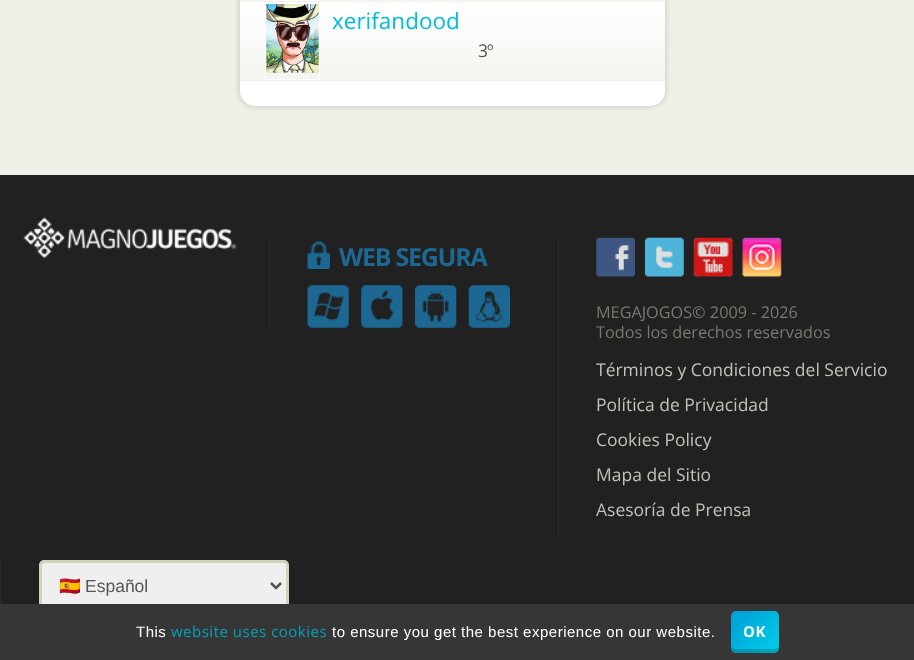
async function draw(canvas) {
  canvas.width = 914;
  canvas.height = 660;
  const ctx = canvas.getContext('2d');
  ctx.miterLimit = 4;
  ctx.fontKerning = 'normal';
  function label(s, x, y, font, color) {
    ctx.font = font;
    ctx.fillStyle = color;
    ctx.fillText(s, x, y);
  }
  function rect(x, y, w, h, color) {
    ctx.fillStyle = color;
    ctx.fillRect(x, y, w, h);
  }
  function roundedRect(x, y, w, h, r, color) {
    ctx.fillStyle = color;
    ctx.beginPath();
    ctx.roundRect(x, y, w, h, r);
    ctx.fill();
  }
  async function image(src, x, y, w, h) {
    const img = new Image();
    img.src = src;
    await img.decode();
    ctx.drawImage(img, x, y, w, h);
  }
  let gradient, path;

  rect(0, 0, 914, 660, '#eff1e8');
  ctx.fillStyle = '#00000033';
  ctx.filter = 'blur(3px)';
  ctx.beginPath();
  ctx.roundRect(240, -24, 425, 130, 15);
  ctx.fill();
  ctx.filter = 'none';
  roundedRect(240, -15, 425, 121, 15, '#fff');
  gradient = ctx.createLinearGradient(453, -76, 453, 1.3);
  gradient.addColorStop(0, '#fff');
  gradient.addColorStop(1, '#f4f5f0');
  ctx.fillStyle = gradient;
  ctx.fillRect(240, 0, 425, 1);
  rect(240, 1, 425, 1, '#eff1e8');
  ctx.strokeStyle = '#fff';
  ctx.strokeRect(265.5, -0.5, 54, 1);
  gradient = ctx.createLinearGradient(453, 2.5, 453, 80);
  gradient.addColorStop(0, '#fff');
  gradient.addColorStop(1, '#f4f5f0');
  ctx.fillStyle = gradient;
  ctx.fillRect(240, 15, 425, 65);
  rect(240, 80, 425, 1, '#eff1e8');
  ctx.strokeRect(265.5, 3.5, 54, 76);
  await image('assets/img1.png', 266, 4, 53, 69);
  label('xerifandood', 332, 29, '22.5px Open Sans', '#00bdd6');
  ctx.letterSpacing = '-1px';
  label('3º', 478, 57, '17.5px Open Sans', '#555');
  rect(0, 175, 914, 429, '#212121');
  await image('assets/img2.png', 23, 217, 214, 41);
  rect(269, 238, 1, 90, '#2c2d26');
  await image('assets/img3.png', 307, 241, 23, 28);
  ctx.letterSpacing = '-1.25px';
  label('WEB SEGURA', 339, 266, 'bold 25px Open Sans', '#1c6893');
  await image('assets/img4.png', 307, 285, 42, 43);
  await image('assets/img5.png', 361, 285, 42, 43);
  await image('assets/img6.png', 415, 285, 42, 43);
  await image('assets/img7.png', 468, 285, 42, 43);
  rect(558, 238, 1, 298, '#2c2d26');
  await image('assets/img8.png', 596, 237, 39, 40);
  await image('assets/img9.png', 645, 237, 39, 40);
  await image('assets/img10.png', 693, 237, 40, 40);
  await image('assets/img11.png', 742, 237, 40, 40);
  ctx.letterSpacing = '0px';
  label('MEGAJOGOS© 2009 - 2026', 596, 318, '16.25px Open Sans', '#787a6e');
  label('Todos los derechos reservados', 596, 338, '16.25px Open Sans', '#787a6e');
  label('Términos y Condiciones del Servicio', 596, 376, '17.5px Open Sans', '#c1c2b7');
  label('Política de Privacidad', 596, 411, '17.5px Open Sans', '#c1c2b7');
  label('Cookies Policy', 596, 446, '17.5px Open Sans', '#c1c2b7');
  label('Mapa del Sitio', 596, 481, '17.5px Open Sans', '#c1c2b7');
  label('Asesoría de Prensa', 596, 516, '17.5px Open Sans', '#c1c2b7');
  rect(0, 561, 1, 43, '#2c2d26');
  ctx.fillStyle = '#efefef';
  ctx.beginPath();
  ctx.roundRect(40.5, 561.5, 247, 47, 3.5);
  ctx.fill();
  ctx.strokeStyle = '#cfd5b9';
  ctx.lineWidth = 3;
  ctx.stroke();
  path = new Path2D('M271 583L276 588L281 583');
  ctx.strokeStyle = '#555';
  ctx.lineWidth = 2.5;
  ctx.stroke(path);
  label('🇪🇸', 59, 592, '17.5px Noto Color Emoji', '#555');
  label('Español', 85, 592, '17.5px Liberation Sans', '#555');
  rect(0, 604, 914, 56, '#363636');
  ctx.letterSpacing = '0.5px';
  label('This', 136, 637, '15px Liberation Sans', '#fff');
  label('website uses cookies', 171, 637, '15px Open Sans', '#01a3b8');
  label('to ensure you get the best experience on our website.', 332, 637, '15px Liberation Sans', '#fff');
  gradient = ctx.createLinearGradient(733, 610, 777, 654);
  gradient.addColorStop(0, '#009dd6');
  gradient.addColorStop(1, '#00cfea');
  ctx.fillStyle = gradient;
  ctx.beginPath();
  ctx.roundRect(731, 611, 48, 42, 5);
  ctx.fill();
  ctx.fillStyle = '#00000033';
  path = new Path2D('M731 644C731 653 733 653 742 653H768C777 653 779 653 779 644C779 647 777 649 774 649H736C733 649 731 647 731 644Z');
  ctx.fill(path);
  label('OK', 743, 637, 'bold 15px Open Sans', '#f9fff5');
}

draw(document.querySelector('canvas'));
